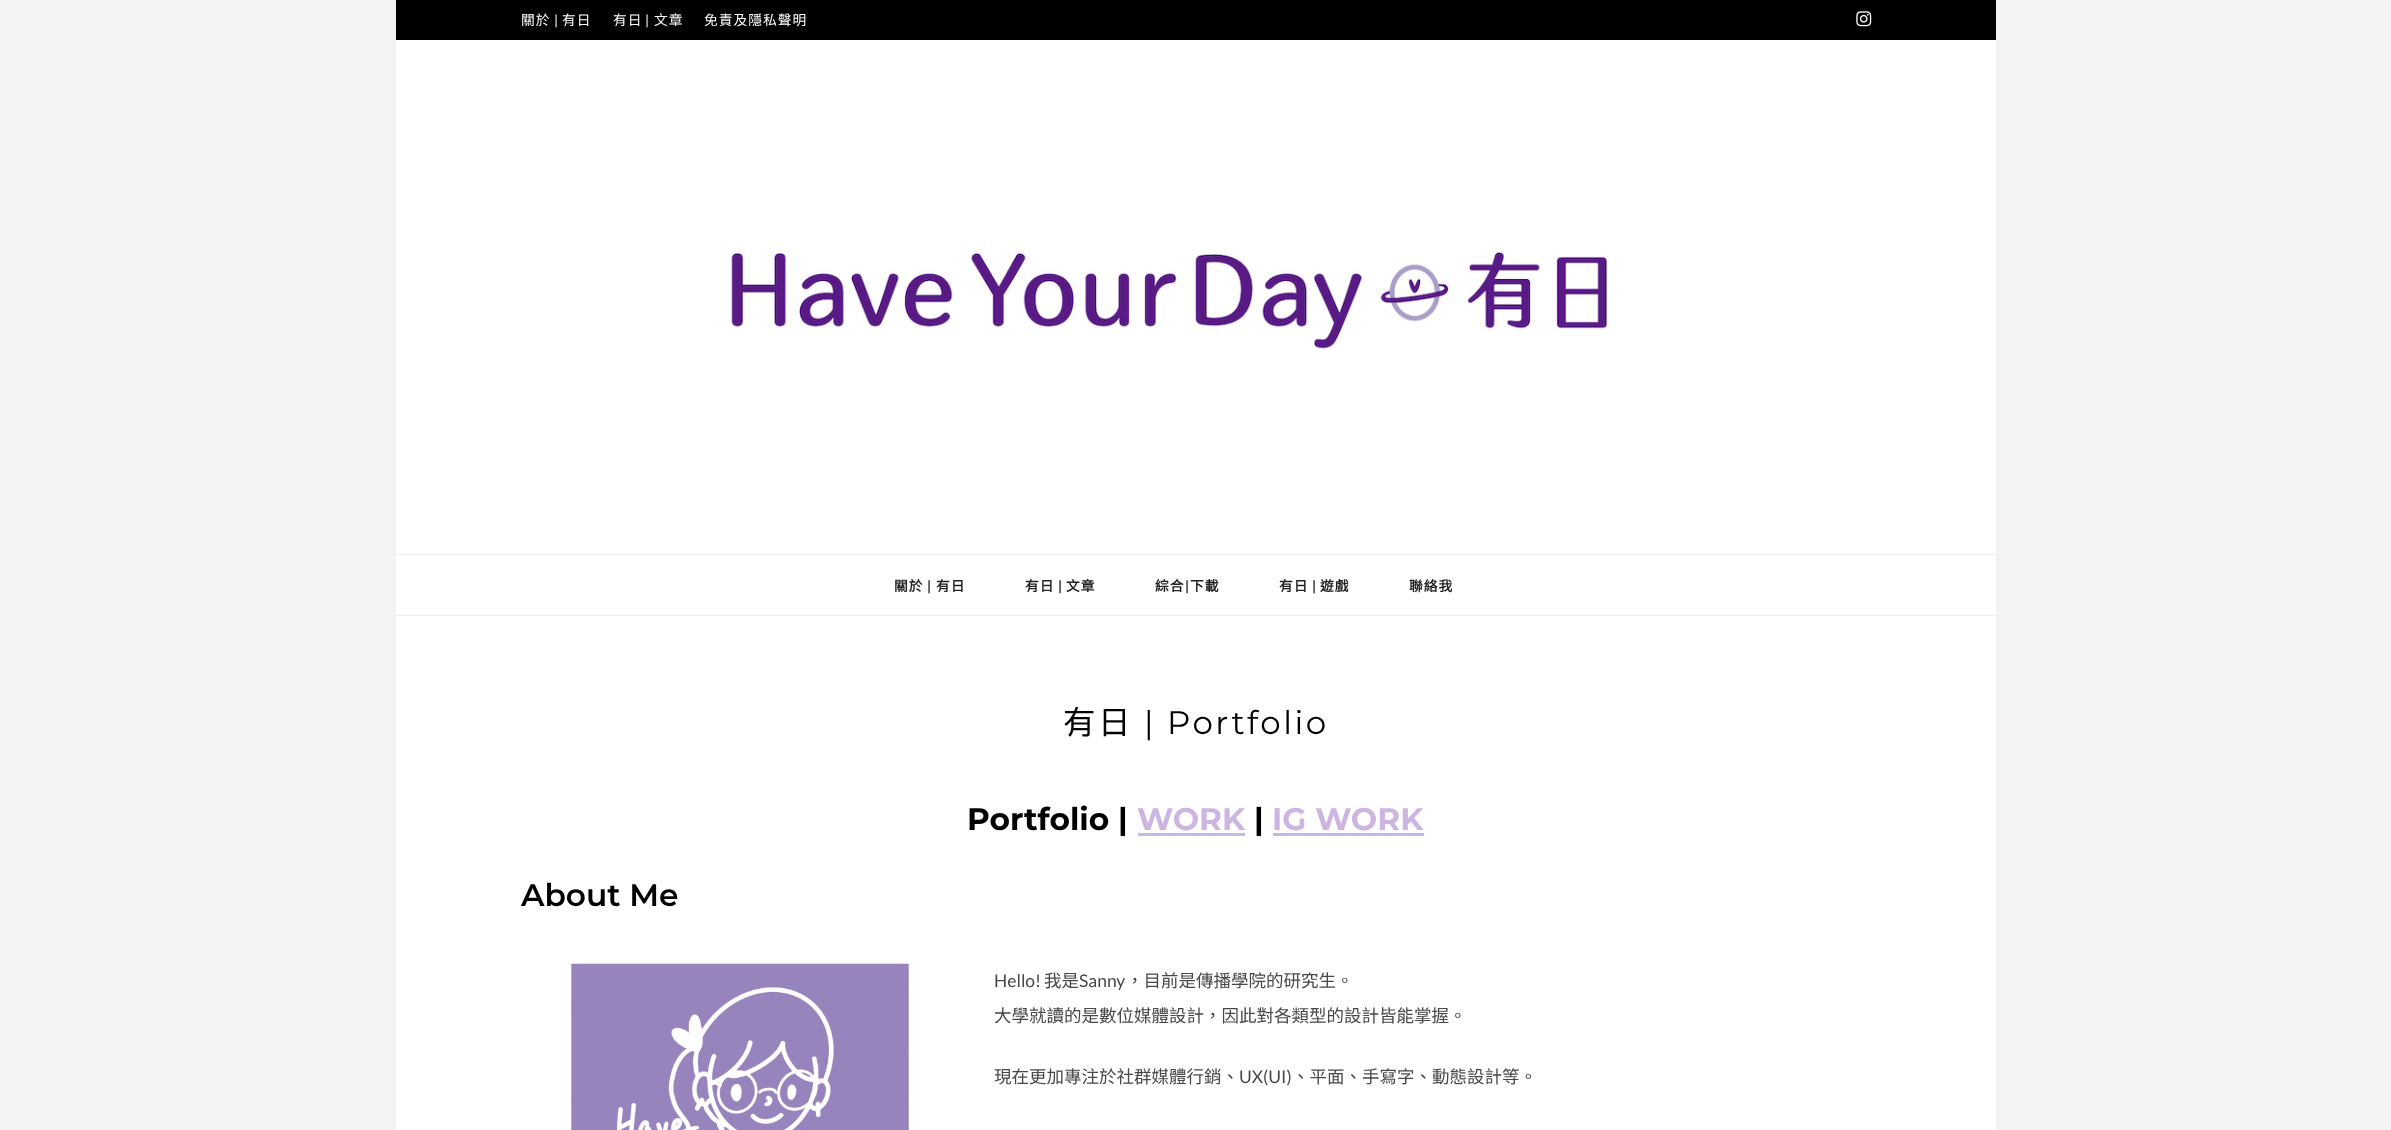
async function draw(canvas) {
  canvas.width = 2391;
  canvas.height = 1130;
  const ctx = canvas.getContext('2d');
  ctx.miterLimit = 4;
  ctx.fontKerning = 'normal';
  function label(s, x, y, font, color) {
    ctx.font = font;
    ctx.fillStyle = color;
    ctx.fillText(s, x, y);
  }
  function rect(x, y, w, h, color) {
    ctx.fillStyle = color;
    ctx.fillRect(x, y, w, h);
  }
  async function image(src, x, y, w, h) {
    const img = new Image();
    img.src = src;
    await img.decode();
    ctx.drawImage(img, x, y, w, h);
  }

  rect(0, 0, 2391, 1130, '#f3f3f3');
  rect(396, 40, 1600, 1090, '#fff');
  rect(396, 0, 1600, 40, '#000');
  ctx.letterSpacing = '1px';
  label('關於', 521, 25, '13.75px Noto Sans CJK TC', '#fff');
  label('|', 554, 25, '13.75px Lato', '#fff');
  label('有日', 562, 25, '13.75px Noto Sans CJK TC', '#fff');
  label('有日', 613, 25, '13.75px Noto Sans CJK TC', '#fff');
  label('|', 645, 25, '13.75px Lato', '#fff');
  label('文章', 654, 25, '13.75px Noto Sans CJK TC', '#fff');
  label('免責及隱私聲明', 704, 25, '13.75px Noto Sans CJK TC', '#fff');
  await image('assets/img1.png', 1856, 11, 16, 16);
  await image('assets/img2.png', 731, 252, 877, 97);
  rect(396, 554, 1600, 1, '#eee');
  rect(396, 615, 1600, 1, '#eee');
  label('關於', 894, 591, 'bold 13.75px Noto Sans CJK TC', '#212121');
  label('|', 927, 591, 'bold 13.75px Lato', '#212121');
  label('有日', 936, 591, 'bold 13.75px Noto Sans CJK TC', '#212121');
  label('有日', 1025, 591, 'bold 13.75px Noto Sans CJK TC', '#212121');
  label('|', 1058, 591, 'bold 13.75px Lato', '#212121');
  label('文章', 1066, 591, 'bold 13.75px Noto Sans CJK TC', '#212121');
  label('綜合', 1155, 591, 'bold 13.75px Noto Sans CJK TC', '#212121');
  label('|', 1185, 591, 'bold 13.75px Lato', '#212121');
  label('下載', 1190, 591, 'bold 13.75px Noto Sans CJK TC', '#212121');
  label('有日', 1279, 591, 'bold 13.75px Noto Sans CJK TC', '#212121');
  label('|', 1312, 591, 'bold 13.75px Lato', '#212121');
  label('遊戲', 1320, 591, 'bold 13.75px Noto Sans CJK TC', '#212121');
  label('聯絡我', 1409, 591, 'bold 13.75px Noto Sans CJK TC', '#212121');
  ctx.letterSpacing = '2.5px';
  label('有日', 1063, 734, '32.5px Noto Sans CJK TC', '#000');
  label('| Portfolio', 1144, 734, '32.5px Montserrat', '#000');
  ctx.letterSpacing = '0px';
  label('Portfolio |', 967, 830, 'bold 31.25px Montserrat', '#000');
  label('WORK', 1137, 830, 'bold 31.25px Montserrat', '#cdb5e2');
  rect(1138, 833, 107, 3, '#cdb5e2');
  label('|', 1254, 830, 'bold 31.25px Montserrat', '#000');
  label('IG WORK', 1272, 830, 'bold 31.25px Montserrat', '#cdb5e2');
  rect(1273, 833, 151, 3, '#cdb5e2');
  label('About Me', 521, 906, '600 31.25px Montserrat', '#000');
  await image('assets/img3.png', 571, 963, 338, 167);
  label('Hello!', 994, 987, '17.5px Lato', '#484848');
  label('我是', 1044, 987, '17.5px Noto Sans CJK TC', '#484848');
  label('Sanny', 1079, 987, '17.5px Lato', '#484848');
  label('，目前是傳播學院的研究生。', 1126, 987, '17.5px Noto Sans CJK TC', '#484848');
  label('大學就讀的是數位媒體設計，因此對各類型的設計皆能掌握。', 994, 1022, '17.5px Noto Sans CJK TC', '#484848');
  label('現在更加專注於社群媒體行銷、', 994, 1083, '17.5px Noto Sans CJK TC', '#484848');
  label('UX(UI)', 1239, 1083, '17.5px Lato', '#484848');
  label('、平面、手寫字、動態設計等。', 1292, 1083, '17.5px Noto Sans CJK TC', '#484848');
}

draw(document.querySelector('canvas'));
